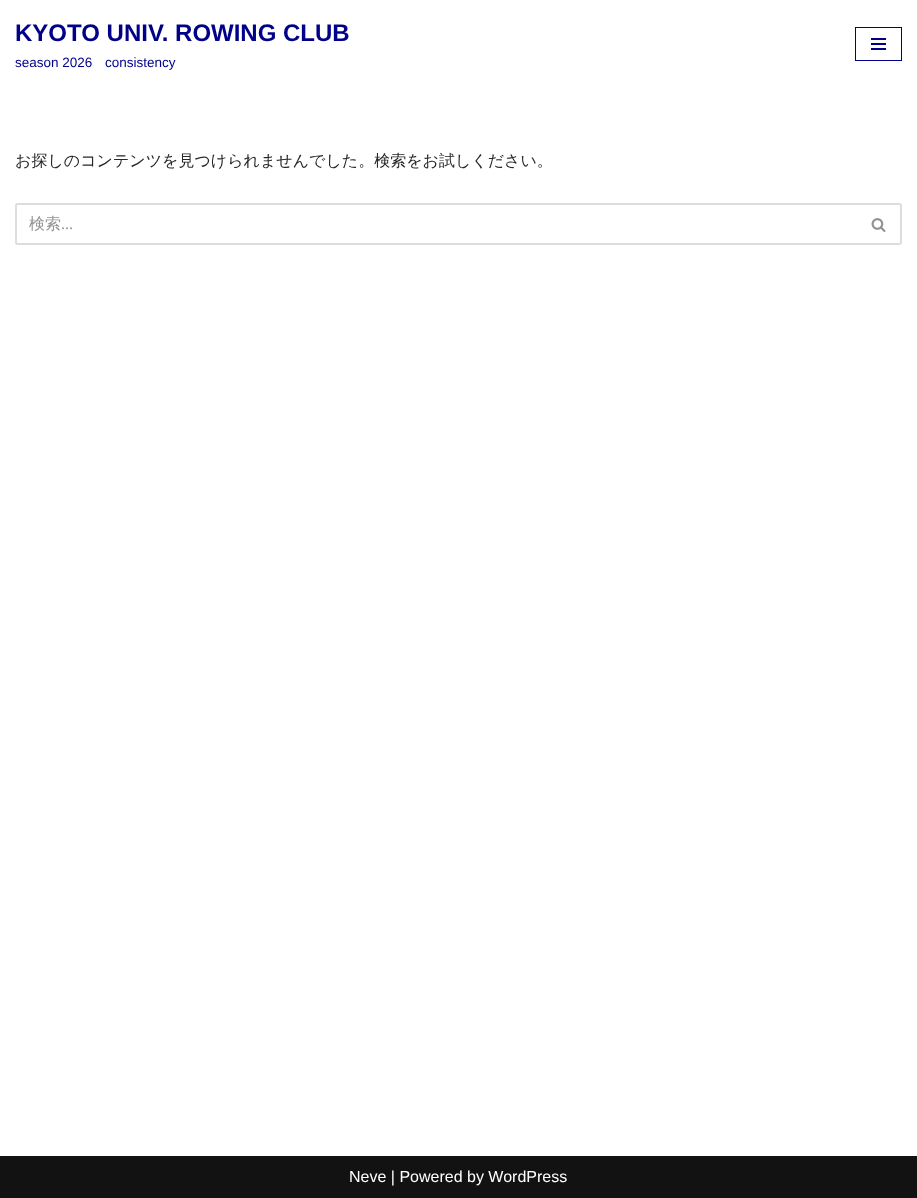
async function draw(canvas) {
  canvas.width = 917;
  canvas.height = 1198;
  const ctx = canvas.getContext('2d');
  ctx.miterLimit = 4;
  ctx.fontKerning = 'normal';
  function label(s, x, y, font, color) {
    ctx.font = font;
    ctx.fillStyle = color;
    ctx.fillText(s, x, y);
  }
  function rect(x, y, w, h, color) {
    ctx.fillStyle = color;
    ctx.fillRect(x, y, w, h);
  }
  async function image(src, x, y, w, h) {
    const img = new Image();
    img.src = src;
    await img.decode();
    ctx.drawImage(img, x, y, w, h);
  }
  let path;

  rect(0, 0, 917, 1198, '#fff');
  label('KYOTO UNIV. ROWING CLUB', 15, 41, 'bold 24px Liberation Sans', '#008');
  label('season 2026', 15, 67, '13.5px Liberation Sans', '#008');
  label('consistency', 105, 67, '13.5px Liberation Sans', '#008');
  ctx.strokeStyle = '#008';
  ctx.strokeRect(855.5, 27.5, 46, 33);
  rect(871, 38, 15, 2, '#008');
  rect(871, 43, 15, 2, '#008');
  rect(871, 48, 15, 2, '#008');
  label('お探しのコンテンツを見つけられませんでした。検索をお試しください。', 15, 166, '500 16px WenQuanYi Zen Hei', '#272626');
  ctx.fillStyle = '#ddd';
  path = new Path2D('M18 203H857V245H18C16 245 15 244 15 242V206C15 204 16 203 18 203ZM18 205H857V243H18C17 243 17 243 17 242V206C17 205 17 205 18 205Z');
  ctx.fill(path, 'evenodd');
  label('検索', 29, 229, '500 16px WenQuanYi Zen Hei', '#939393');
  label('...', 61, 229, '16px Liberation Serif', '#939393');
  ctx.fillStyle = '#ddd';
  path = new Path2D('M857 203H899C901 203 902 204 902 206V242C902 244 901 245 899 245H857ZM857 205H899C900 205 900 205 900 206V242C900 243 900 243 899 243H857Z');
  ctx.fill(path, 'evenodd');
  await image('assets/img1.png', 871, 218, 15, 14);
  rect(0, 1156, 917, 42, '#121212');
  label('Neve | Powered by WordPress', 349, 1182, '16px Liberation Sans', '#fff');
}

draw(document.querySelector('canvas'));
